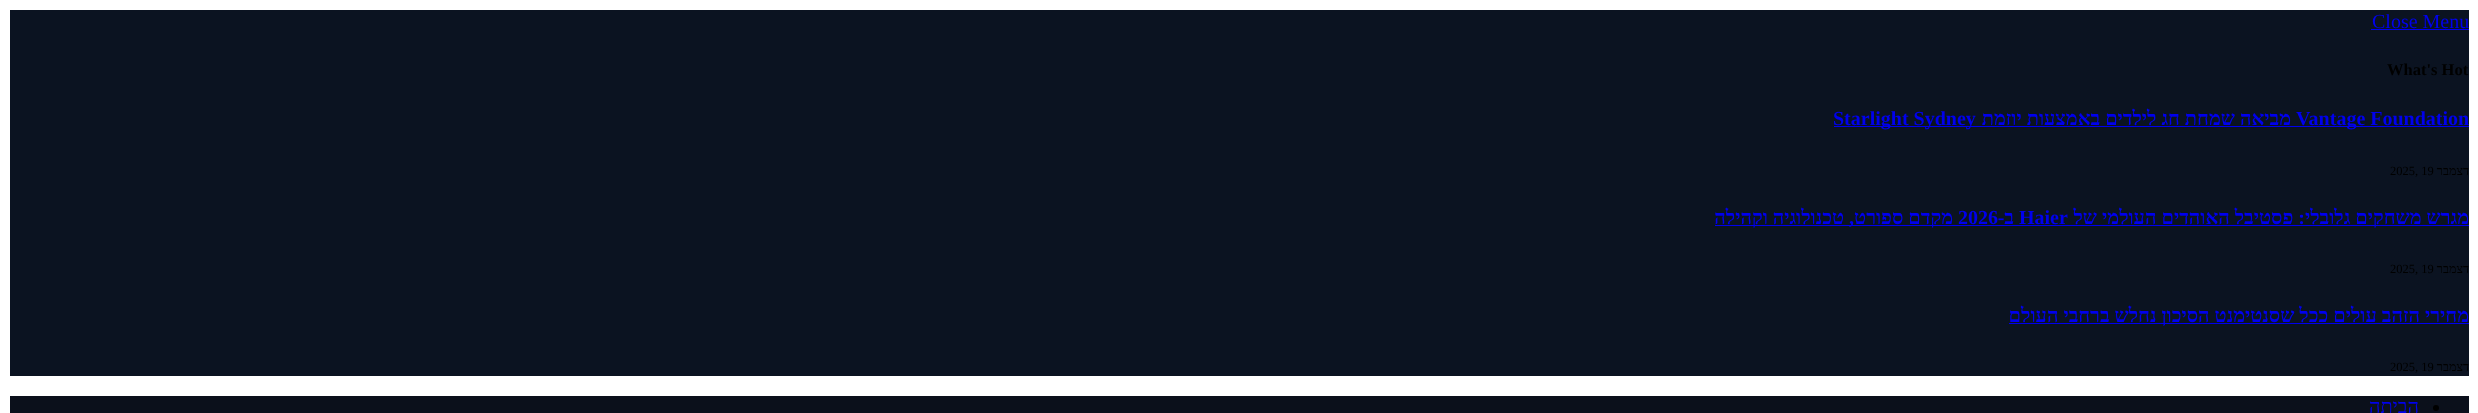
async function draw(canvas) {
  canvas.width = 2478;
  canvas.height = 413;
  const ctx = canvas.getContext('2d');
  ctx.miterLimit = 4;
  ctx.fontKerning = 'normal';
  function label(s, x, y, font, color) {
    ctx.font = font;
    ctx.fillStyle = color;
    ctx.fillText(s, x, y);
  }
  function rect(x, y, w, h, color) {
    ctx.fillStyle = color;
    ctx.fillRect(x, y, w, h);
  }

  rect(0, 0, 2478, 413, '#fff');
  rect(10, 10, 2459, 366, '#0b1321');
  label('Close Menu', 2372, 28, '20px Liberation Serif', '#00e');
  rect(2371, 29, 98, 1, '#00e');
  label('What\'s Hot', 2387, 75, 'bold 16.5px Liberation Serif', '#000');
  rect(1976, 126, 493, 1, '#00e');
  label('Vantage Foundation', 2296, 125, 'bold 20px Liberation Serif', '#00e');
  ctx.direction = 'rtl';
  label('מביאה שמחת חג לילדים באמצעות יוזמת', 2291, 125, 'bold 20px Liberation Serif', '#00e');
  rect(1834, 126, 142, 1, '#00e');
  ctx.direction = 'ltr';
  label('Starlight Sydney', 1833, 125, 'bold 20px Liberation Serif', '#00e');
  ctx.direction = 'rtl';
  label('דצמבר', 2469, 175, '12.5px Liberation Serif', '#000');
  ctx.direction = 'ltr';
  label('2025, 19', 2390, 175, '12.5px Liberation Serif', '#000');
  rect(1715, 225, 754, 1, '#00e');
  ctx.direction = 'rtl';
  label('מגרש משחקים גלובלי: פסטיבל האוהדים העולמי של', 2469, 224, 'bold 20px Liberation Serif', '#00e');
  ctx.direction = 'ltr';
  label('Haier', 2019, 224, 'bold 20px Liberation Serif', '#00e');
  ctx.direction = 'rtl';
  label('ב-', 2014, 224, 'bold 20px Liberation Serif', '#00e');
  ctx.direction = 'ltr';
  label('2026', 1958, 224, 'bold 20px Liberation Serif', '#00e');
  ctx.direction = 'rtl';
  label('מקדם ספורט, טכנולוגיה וקהילה', 1953, 224, 'bold 20px Liberation Serif', '#00e');
  label('דצמבר', 2469, 273, '12.5px Liberation Serif', '#000');
  ctx.direction = 'ltr';
  label('2025, 19', 2390, 273, '12.5px Liberation Serif', '#000');
  rect(2009, 323, 460, 1, '#00e');
  ctx.direction = 'rtl';
  label('מחירי הזהב עולים ככל שסנטימנט הסיכון נחלש ברחבי העולם', 2469, 322, 'bold 20px Liberation Serif', '#00e');
  label('דצמבר', 2469, 371, '12.5px Liberation Serif', '#000');
  ctx.direction = 'ltr';
  label('2025, 19', 2390, 371, '12.5px Liberation Serif', '#000');
  rect(10, 396, 2459, 17, '#0b101b');
  ctx.fillStyle = '#000';
  ctx.beginPath();
  ctx.arc(2436, 408, 3, 0, 2 * Math.PI);
  ctx.fill();
  ctx.direction = 'rtl';
  label('הביתה', 2419, 413, '20px Liberation Serif', '#00e');
}

draw(document.querySelector('canvas'));
